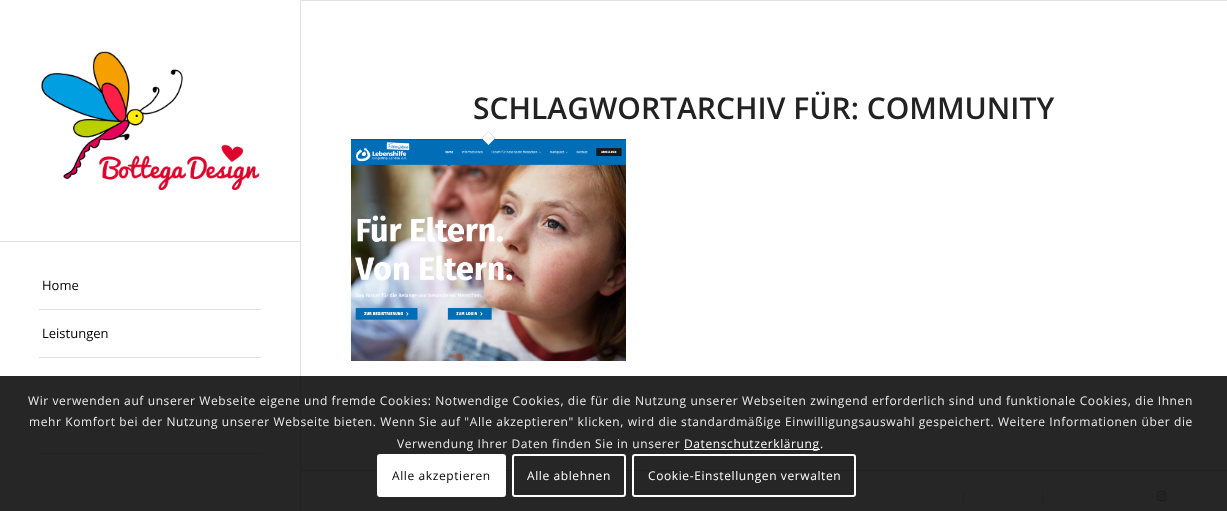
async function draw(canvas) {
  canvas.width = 1227;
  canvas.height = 511;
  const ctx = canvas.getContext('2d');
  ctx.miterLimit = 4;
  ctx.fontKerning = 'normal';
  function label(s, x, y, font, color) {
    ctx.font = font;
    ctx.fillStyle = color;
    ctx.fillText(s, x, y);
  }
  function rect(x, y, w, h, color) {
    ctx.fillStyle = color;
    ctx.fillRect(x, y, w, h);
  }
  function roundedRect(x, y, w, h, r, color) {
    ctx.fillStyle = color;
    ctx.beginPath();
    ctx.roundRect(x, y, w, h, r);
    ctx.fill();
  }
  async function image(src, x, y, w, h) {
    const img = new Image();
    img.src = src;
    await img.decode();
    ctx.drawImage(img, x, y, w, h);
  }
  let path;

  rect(0, 0, 1227, 511, '#fff');
  rect(300, 0, 1, 511, '#e1e1e1');
  rect(301, 0, 926, 1, '#e1e1e1');
  label('SCHLAGWORTARCHIV FÜR: COMMUNITY', 473, 119, '600 30px Open Sans', '#222');
  await image('assets/img1.png', 351, 139, 275, 222);
  ctx.fillStyle = '#fff';
  path = new Path2D('M488.5 131L495.5 138L488.5 145L481.5 138Z');
  ctx.fill(path);
  path = new Path2D('M488.5 131.5L495 138L488.5 144.5L482 138Z');
  ctx.strokeStyle = '#e1e1e1';
  ctx.stroke(path);
  rect(301, 470, 926, 1, '#e1e1e1');
  rect(963, 492, 1, 10, '#e1e1e1');
  rect(1042, 492, 1, 10, '#e1e1e1');
  await image('assets/img2.png', 1157, 491, 10, 10);
  rect(0, 241, 300, 1, '#e1e1e1');
  await image('assets/img3.png', 41, 51, 219, 139);
  rect(39, 309, 222, 1, '#e1e1e1');
  label('Home', 42, 290, '13px Open Sans', '#000');
  rect(39, 357, 222, 1, '#e1e1e1');
  label('Leistungen', 42, 338, '13px Open Sans', '#000');
  rect(39, 405, 222, 1, '#e1e1e1');
  rect(39, 453, 222, 1, '#e1e1e1');
  rect(0, 376, 1227, 135, '#000000d9');
  ctx.letterSpacing = '0.6px';
  label('Wir verwenden auf unserer Webseite eigene und fremde Cookies: Notwendige Cookies, die für die Nutzung unserer Webseiten zwingend erforderlich sind und funktionale Cookies, die Ihnen', 28, 405, '12px Open Sans', '#e9e9e9');
  label('mehr Komfort bei der Nutzung unserer Webseite bieten. Wenn Sie auf "Alle akzeptieren" klicken, wird die standardmäßige Einwilligungsauswahl gespeichert. Weitere Informationen über die', 29, 426, '12px Open Sans', '#e9e9e9');
  label('Verwendung Ihrer Daten finden Sie in unserer', 397, 448, '12px Open Sans', '#e9e9e9');
  rect(684, 449, 136, 1, '#fff');
  label('Datenschutzerklärung', 684, 448, '12px Open Sans', '#fff');
  label('.', 820, 448, '12px Open Sans', '#e9e9e9');
  roundedRect(377, 454, 129, 43, 3, '#fff');
  label('Alle akzeptieren', 392, 480, '12px Open Sans', '#000');
  ctx.fillStyle = '#262626';
  ctx.beginPath();
  ctx.roundRect(513, 455, 112, 41, 2);
  ctx.fill();
  ctx.strokeStyle = '#fff';
  ctx.lineWidth = 2;
  ctx.stroke();
  label('Alle ablehnen', 527, 480, '12px Open Sans', '#fff');
  ctx.beginPath();
  ctx.roundRect(633, 455, 222, 41, 2);
  ctx.stroke();
  label('Cookie-Einstellungen verwalten', 648, 480, '12px Open Sans', '#fff');
}

draw(document.querySelector('canvas'));
